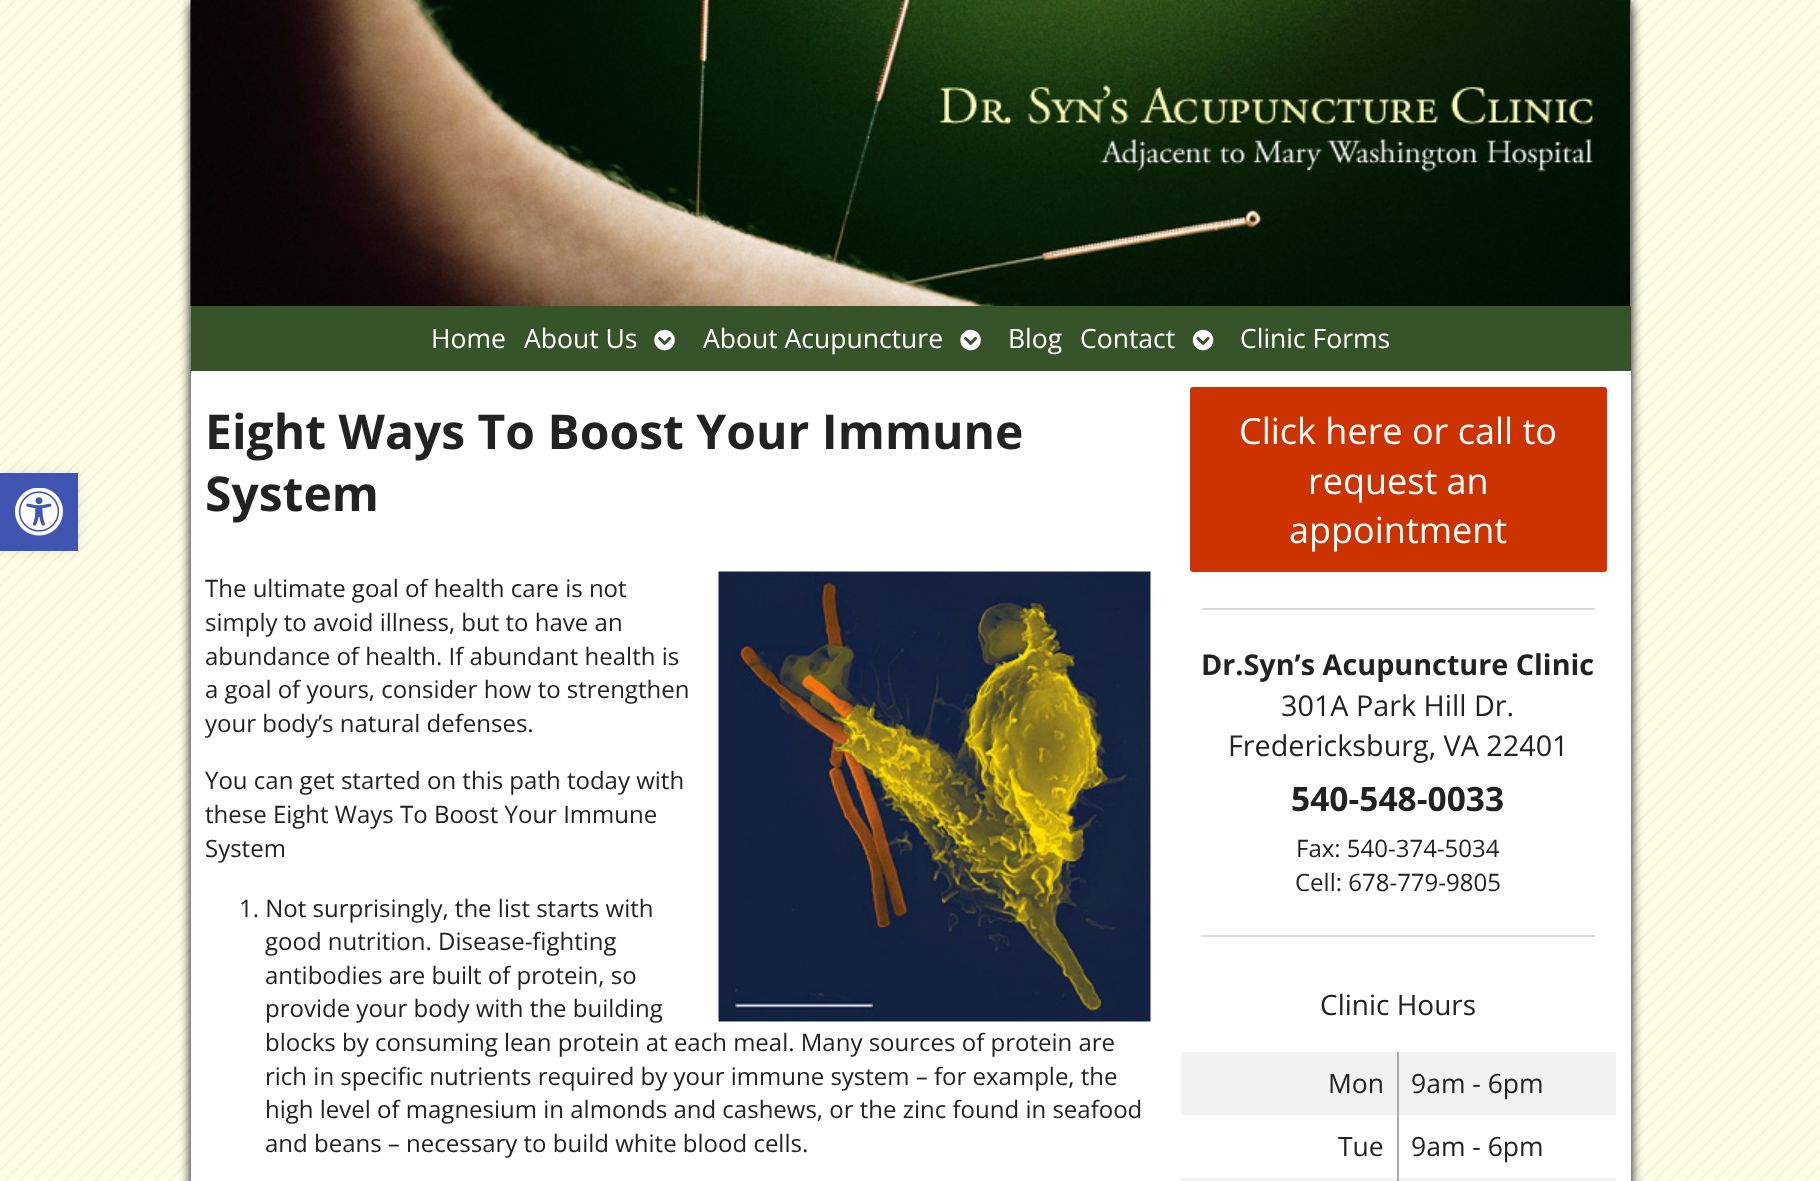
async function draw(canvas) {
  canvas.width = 1820;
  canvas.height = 1181;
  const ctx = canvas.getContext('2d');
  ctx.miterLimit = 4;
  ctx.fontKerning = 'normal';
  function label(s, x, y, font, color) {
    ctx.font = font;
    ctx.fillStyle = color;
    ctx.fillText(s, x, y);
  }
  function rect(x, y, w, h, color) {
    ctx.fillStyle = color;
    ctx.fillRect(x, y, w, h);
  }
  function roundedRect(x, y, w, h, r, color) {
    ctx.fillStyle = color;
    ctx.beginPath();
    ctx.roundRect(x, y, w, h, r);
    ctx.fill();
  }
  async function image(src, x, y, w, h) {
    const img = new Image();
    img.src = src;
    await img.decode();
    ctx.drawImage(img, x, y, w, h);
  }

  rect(0, 0, 1820, 1181, '#feffe6');
  await image('assets/img1.png', 0, 0, 1820, 1181);
  ctx.fillStyle = '#0000001a';
  ctx.filter = 'blur(7.5px)';
  ctx.beginPath();
  ctx.rect(0, 473, 78, 78);
  ctx.fill();
  ctx.filter = 'none';
  rect(0, 473, 78, 78, '#4054b2');
  await image('assets/img2.png', 15, 488, 48, 48);
  ctx.fillStyle = '#000';
  ctx.filter = 'blur(6px)';
  ctx.beginPath();
  ctx.roundRect(191, 2, 1440, 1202, 5);
  ctx.fill();
  ctx.filter = 'none';
  rect(191, 0, 1440, 1181, '#fff');
  await image('assets/img3.png', 190, 0, 1441, 306);
  rect(191, 306, 1440, 65, '#37532a');
  label('Home', 431, 348, '26.5px Open Sans', '#fff');
  label('About Us', 524, 348, '26.5px Open Sans', '#fff');
  await image('assets/img4.png', 654, 329, 21, 22);
  label('About Acupuncture', 703, 348, '26.5px Open Sans', '#fff');
  await image('assets/img4.png', 960, 329, 21, 22);
  label('Blog', 1008, 348, '26.5px Open Sans', '#fff');
  label('Contact', 1080, 348, '26.5px Open Sans', '#fff');
  await image('assets/img5.png', 1192, 329, 22, 22);
  label('Clinic Forms', 1240, 348, '26.5px Open Sans', '#fff');
  label('Eight Ways To Boost Your Immune', 205, 449, 'bold 48px Open Sans', '#222');
  label('System', 205, 511, 'bold 48px Open Sans', '#222');
  label('The ultimate goal of health care is not', 205, 597, '24px Open Sans', '#222');
  await image('assets/img6.png', 718, 571, 433, 451);
  label('simply to avoid illness, but to have an', 205, 631, '24px Open Sans', '#222');
  label('abundance of health. If abundant health is', 205, 665, '24px Open Sans', '#222');
  label('a goal of yours, consider how to strengthen', 205, 698, '24px Open Sans', '#222');
  label('your body’s natural defenses.', 205, 732, '24px Open Sans', '#222');
  label('You can get started on this path today with', 205, 789, '24px Open Sans', '#222');
  label('these Eight Ways To Boost Your Immune', 205, 823, '24px Open Sans', '#222');
  label('System', 205, 857, '24px Open Sans', '#222');
  label('1. Not surprisingly, the list starts with', 239, 917, '24px Open Sans', '#222');
  label('good nutrition. Disease-fighting', 265, 950, '24px Open Sans', '#222');
  label('antibodies are built of protein, so', 265, 984, '24px Open Sans', '#222');
  label('provide your body with the building', 265, 1017, '24px Open Sans', '#222');
  label('blocks by consuming lean protein at each meal. Many sources of protein are', 265, 1051, '24px Open Sans', '#222');
  label('rich in specific nutrients required by your immune system – for example, the', 265, 1085, '24px Open Sans', '#222');
  label('high level of magnesium in almonds and cashews, or the zinc found in seafood', 265, 1118, '24px Open Sans', '#222');
  label('and beans – necessary to build white blood cells.', 265, 1152, '24px Open Sans', '#222');
  roundedRect(1190, 387, 417, 185, 3, '#c30');
  label('Click here or call to', 1239, 444, '36px Open Sans', '#fff');
  label('request an', 1308, 494, '36px Open Sans', '#fff');
  label('appointment', 1289, 543, '36px Open Sans', '#fff');
  rect(1202, 608, 393, 2, '#d9d9d9');
  label('Dr.Syn’s Acupuncture Clinic', 1201, 675, 'bold 28.75px Open Sans', '#222');
  label('301A Park Hill Dr.', 1281, 716, '28.75px Open Sans', '#222');
  label('Fredericksburg, VA 22401', 1228, 756, '28.75px Open Sans', '#222');
  label('540-548-0033', 1291, 811, 'bold 33.5px Open Sans', '#222');
  label('Fax: 540-374-5034', 1296, 857, '24px Open Sans', '#222');
  label('Cell: 678-779-9805', 1295, 891, '24px Open Sans', '#222');
  rect(1202, 935, 393, 2, '#d9d9d9');
  label('Clinic Hours', 1320, 1015, '28px Open Sans', '#222');
  rect(1181, 1052, 435, 63, '#f2f2f2');
  rect(1181, 1178, 435, 3, '#f2f2f2');
  rect(1397, 1052, 2, 129, '#aaa');
  label('Mon', 1328, 1093, '26.5px Open Sans', '#222');
  label('9am - 6pm', 1411, 1093, '26.5px Open Sans', '#222');
  label('Tue', 1338, 1156, '26.5px Open Sans', '#222');
  label('9am - 6pm', 1411, 1156, '26.5px Open Sans', '#222');
}

draw(document.querySelector('canvas'));
